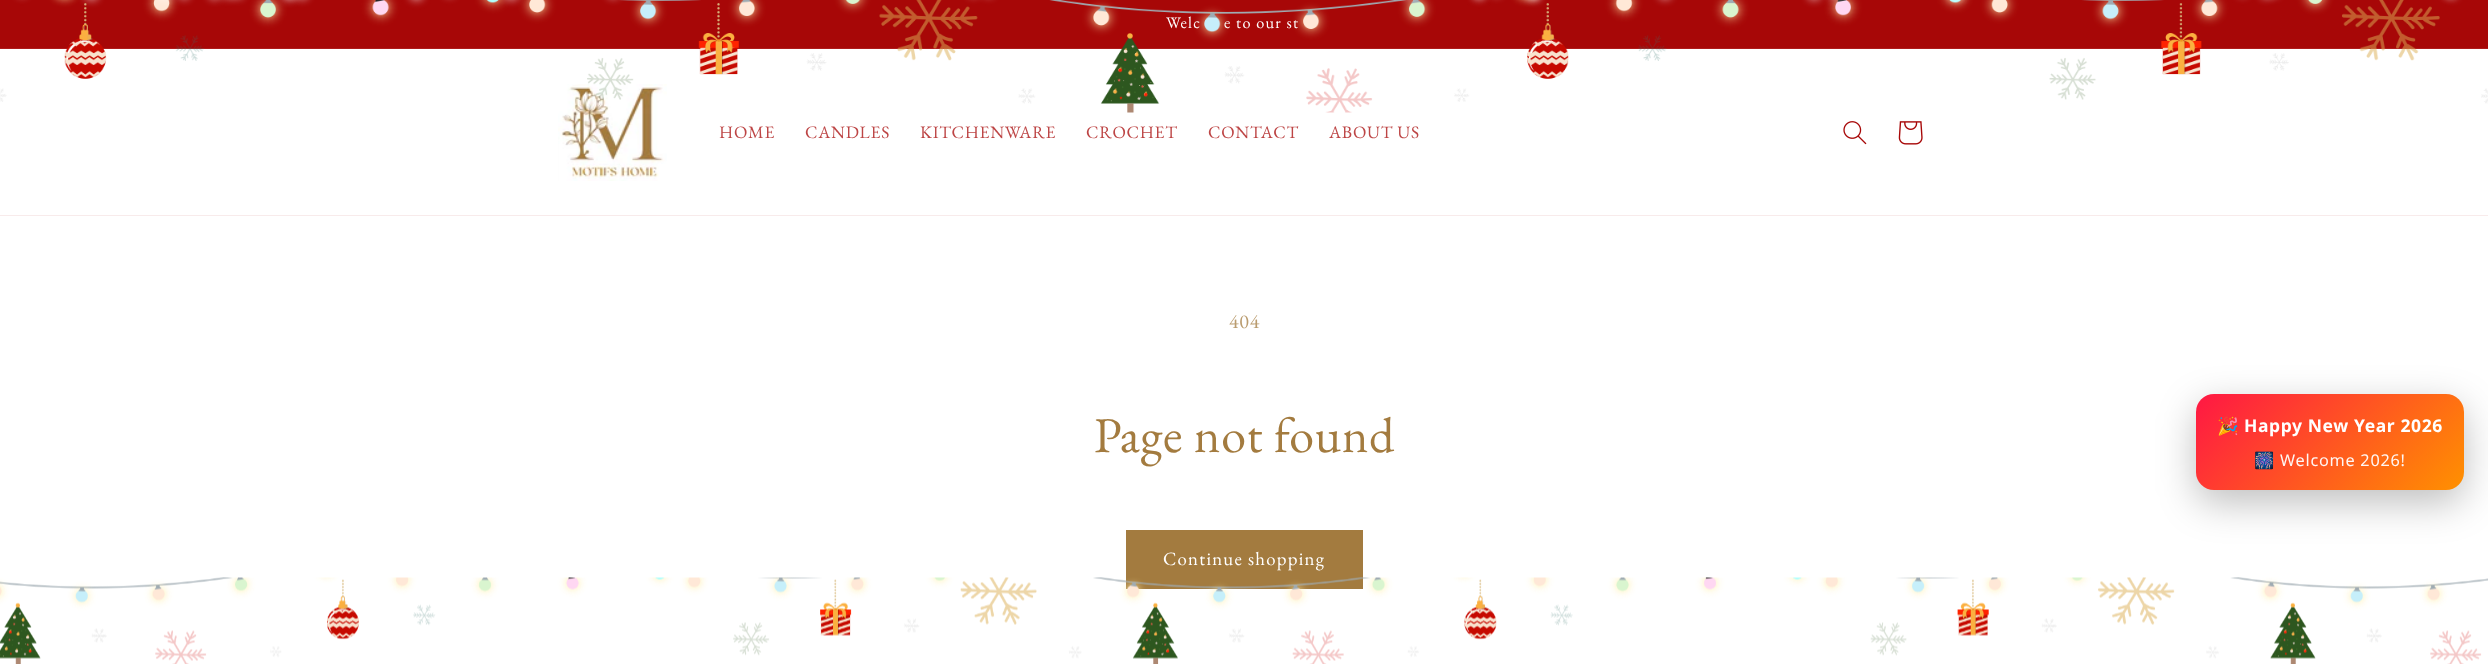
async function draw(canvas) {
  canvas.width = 2488;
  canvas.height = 664;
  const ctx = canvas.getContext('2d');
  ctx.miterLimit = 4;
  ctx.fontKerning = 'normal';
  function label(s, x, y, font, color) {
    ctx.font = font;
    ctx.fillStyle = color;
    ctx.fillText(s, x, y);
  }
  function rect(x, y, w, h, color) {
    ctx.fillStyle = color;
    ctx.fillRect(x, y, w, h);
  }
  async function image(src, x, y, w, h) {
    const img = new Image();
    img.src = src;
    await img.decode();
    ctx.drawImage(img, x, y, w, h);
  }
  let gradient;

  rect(0, 0, 2488, 664, '#fff');
  rect(0, 0, 2488, 48, '#a70707');
  rect(0, 48, 2488, 1, '#ae1b1b');
  ctx.letterSpacing = '1.25px';
  label('Welc', 1166, 28, '16.25px EB Garamond', '#fff');
  label('e to our st', 1224, 28, '16.25px EB Garamond', '#fff');
  await image('assets/img2.png', 558, 84, 109, 97);
  await image('assets/img1.png', 0, 0, 2488, 113);
  ctx.fillStyle = '#f2dadacc';
  ctx.filter = 'blur(4px)';
  ctx.beginPath();
  ctx.roundRect(18, -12, 8, 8, 4);
  ctx.fill();
  ctx.filter = 'none';
  ctx.fillStyle = '#ffffffad';
  ctx.filter = 'blur(4px)';
  ctx.beginPath();
  ctx.roundRect(85, -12, 13, 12, 6);
  ctx.fill();
  ctx.filter = 'none';
  ctx.filter = 'blur(4px)';
  ctx.beginPath();
  ctx.roundRect(159, -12, 12, 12, 6);
  ctx.fill();
  ctx.filter = 'none';
  ctx.filter = 'blur(4px)';
  ctx.beginPath();
  ctx.roundRect(179, -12, 10, 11, 5);
  ctx.fill();
  ctx.filter = 'none';
  ctx.filter = 'blur(4px)';
  ctx.beginPath();
  ctx.roundRect(209, -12, 11, 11, 5.5);
  ctx.fill();
  ctx.filter = 'none';
  ctx.fillStyle = '#f2dadacc';
  ctx.filter = 'blur(4px)';
  ctx.beginPath();
  ctx.roundRect(223, -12, 11, 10, 5);
  ctx.fill();
  ctx.filter = 'none';
  ctx.fillStyle = '#ffffffad';
  ctx.filter = 'blur(4px)';
  ctx.beginPath();
  ctx.roundRect(233, -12, 10, 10, 5);
  ctx.fill();
  ctx.filter = 'none';
  ctx.filter = 'blur(4px)';
  ctx.beginPath();
  ctx.roundRect(283, -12, 12, 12, 6);
  ctx.fill();
  ctx.filter = 'none';
  ctx.filter = 'blur(4px)';
  ctx.beginPath();
  ctx.roundRect(286, -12, 9, 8, 4);
  ctx.fill();
  ctx.filter = 'none';
  ctx.filter = 'blur(4px)';
  ctx.beginPath();
  ctx.roundRect(296, -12, 12, 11, 5.5);
  ctx.fill();
  ctx.filter = 'none';
  ctx.fillStyle = '#f2dadacc';
  ctx.filter = 'blur(4px)';
  ctx.beginPath();
  ctx.roundRect(410, -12, 13, 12, 6);
  ctx.fill();
  ctx.filter = 'none';
  ctx.filter = 'blur(4px)';
  ctx.beginPath();
  ctx.roundRect(445, -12, 9, 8, 4);
  ctx.fill();
  ctx.filter = 'none';
  ctx.fillStyle = '#ffffffad';
  ctx.filter = 'blur(4px)';
  ctx.beginPath();
  ctx.roundRect(505, -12, 13, 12, 6);
  ctx.fill();
  ctx.filter = 'none';
  ctx.filter = 'blur(4px)';
  ctx.beginPath();
  ctx.roundRect(608, -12, 10, 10, 5);
  ctx.fill();
  ctx.filter = 'none';
  ctx.filter = 'blur(4px)';
  ctx.beginPath();
  ctx.roundRect(969, -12, 9, 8, 4);
  ctx.fill();
  ctx.filter = 'none';
  ctx.fillStyle = '#f2dadacc';
  ctx.filter = 'blur(4px)';
  ctx.beginPath();
  ctx.roundRect(984, -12, 9, 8, 4);
  ctx.fill();
  ctx.filter = 'none';
  ctx.fillStyle = '#ffffffad';
  ctx.filter = 'blur(4px)';
  ctx.beginPath();
  ctx.roundRect(1403, -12, 11, 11, 5.5);
  ctx.fill();
  ctx.filter = 'none';
  ctx.fillStyle = '#f2dadacc';
  ctx.filter = 'blur(4px)';
  ctx.beginPath();
  ctx.roundRect(1474, -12, 10, 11, 5);
  ctx.fill();
  ctx.filter = 'none';
  ctx.fillStyle = '#ffffffad';
  ctx.filter = 'blur(4px)';
  ctx.beginPath();
  ctx.roundRect(1474, -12, 10, 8, 4);
  ctx.fill();
  ctx.filter = 'none';
  ctx.filter = 'blur(4px)';
  ctx.beginPath();
  ctx.roundRect(1493, -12, 7, 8, 3.5);
  ctx.fill();
  ctx.filter = 'none';
  ctx.filter = 'blur(4px)';
  ctx.beginPath();
  ctx.roundRect(1528, -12, 12, 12, 6);
  ctx.fill();
  ctx.filter = 'none';
  ctx.filter = 'blur(4px)';
  ctx.beginPath();
  ctx.roundRect(1529, -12, 10, 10, 5);
  ctx.fill();
  ctx.filter = 'none';
  ctx.fillStyle = '#f2dadacc';
  ctx.filter = 'blur(4px)';
  ctx.beginPath();
  ctx.roundRect(1659, -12, 12, 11, 5.5);
  ctx.fill();
  ctx.filter = 'none';
  ctx.fillStyle = '#ffffffad';
  ctx.filter = 'blur(4px)';
  ctx.beginPath();
  ctx.roundRect(1808, -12, 12, 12, 6);
  ctx.fill();
  ctx.filter = 'none';
  ctx.filter = 'blur(4px)';
  ctx.beginPath();
  ctx.roundRect(1830, -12, 11, 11, 5.5);
  ctx.fill();
  ctx.filter = 'none';
  ctx.filter = 'blur(4px)';
  ctx.beginPath();
  ctx.roundRect(1950, -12, 13, 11, 5.5);
  ctx.fill();
  ctx.filter = 'none';
  ctx.fillStyle = '#f2dadacc';
  ctx.filter = 'blur(4px)';
  ctx.beginPath();
  ctx.roundRect(2239, -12, 7, 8, 3.5);
  ctx.fill();
  ctx.filter = 'none';
  ctx.fillStyle = '#ffffffad';
  ctx.filter = 'blur(4px)';
  ctx.beginPath();
  ctx.roundRect(2261, -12, 10, 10, 5);
  ctx.fill();
  ctx.filter = 'none';
  ctx.filter = 'blur(4px)';
  ctx.beginPath();
  ctx.roundRect(2269, -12, 9, 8, 4);
  ctx.fill();
  ctx.filter = 'none';
  ctx.fillStyle = '#f2dadacc';
  ctx.filter = 'blur(4px)';
  ctx.beginPath();
  ctx.roundRect(2444, -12, 9, 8, 4);
  ctx.fill();
  ctx.filter = 'none';
  ctx.fillStyle = '#ffffffad';
  ctx.filter = 'blur(4px)';
  ctx.beginPath();
  ctx.roundRect(2448, -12, 8, 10, 4);
  ctx.fill();
  ctx.filter = 'none';
  rect(0, 215, 2488, 1, '#f8ebeb');
  ctx.letterSpacing = '0.75px';
  label('HOME', 719, 138, '17.5px EB Garamond', '#bd4545');
  label('CANDLES', 805, 138, '17.5px EB Garamond', '#bd4545');
  label('KITCHENWARE', 920, 138, '17.5px EB Garamond', '#bd4545');
  label('CROCHET', 1086, 138, '17.5px EB Garamond', '#bd4545');
  label('CONTACT', 1208, 138, '17.5px EB Garamond', '#bd4545');
  label('ABOUT US', 1329, 138, '17.5px EB Garamond', '#bd4545');
  await image('assets/img3.png', 1843, 121, 24, 24);
  await image('assets/img4.png', 1898, 121, 25, 24);
  label('404', 1229, 328, '20px EB Garamond', '#ba9c6f');
  label('Page not found', 1094, 452, '50px EB Garamond', '#a37b3f');
  rect(1126, 530, 237, 59, '#a37b3f');
  ctx.letterSpacing = '1.25px';
  label('Continue shopping', 1163, 565, '18.75px EB Garamond', '#fff');
  ctx.fillStyle = '#00000040';
  ctx.filter = 'blur(19px)';
  ctx.beginPath();
  ctx.roundRect(2196, 406, 268, 97, 18);
  ctx.fill();
  ctx.filter = 'none';
  gradient = ctx.createLinearGradient(2239, 351, 2421, 533);
  gradient.addColorStop(0, '#ff1744');
  gradient.addColorStop(1, '#ff9100');
  ctx.fillStyle = gradient;
  ctx.beginPath();
  ctx.roundRect(2196, 394, 268, 96, 18);
  ctx.fill();
  ctx.letterSpacing = '0.6px';
  label('🎉', 2217, 432, 'bold 17.5px Noto Color Emoji', '#fff');
  label('Happy New Year 2026', 2244, 432, 'bold 17.5px Noto Sans', '#fff');
  ctx.letterSpacing = '0.75px';
  label('🎆', 2254, 466, '16.25px Noto Color Emoji', '#fff6f4');
  label('Welcome 2026!', 2280, 466, '16.25px Noto Sans', '#fff6f4');
  await image('assets/img5.png', 0, 577, 2488, 87);
}

draw(document.querySelector('canvas'));
